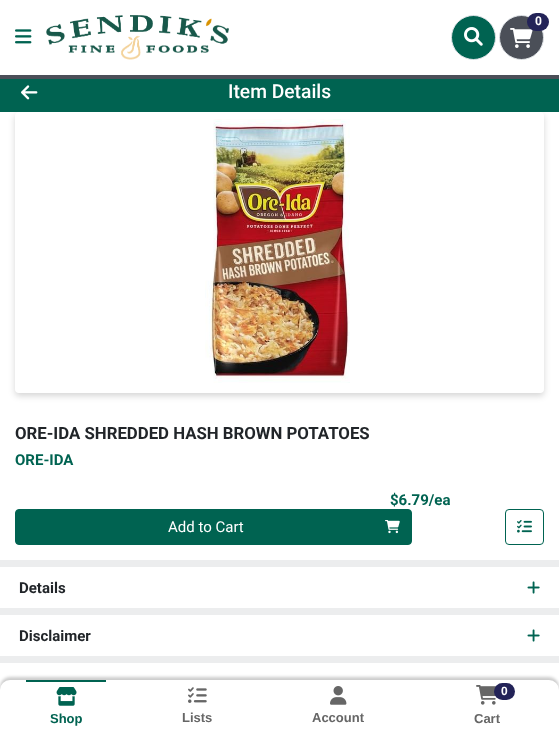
async function draw(canvas) {
  canvas.width = 559;
  canvas.height = 733;
  const ctx = canvas.getContext('2d');
  ctx.miterLimit = 4;
  ctx.fontKerning = 'normal';
  function label(s, x, y, font, color) {
    ctx.font = font;
    ctx.fillStyle = color;
    ctx.fillText(s, x, y);
  }
  function rect(x, y, w, h, color) {
    ctx.fillStyle = color;
    ctx.fillRect(x, y, w, h);
  }
  function roundedRect(x, y, w, h, r, color) {
    ctx.fillStyle = color;
    ctx.beginPath();
    ctx.roundRect(x, y, w, h, r);
    ctx.fill();
  }
  async function image(src, x, y, w, h) {
    const img = new Image();
    img.src = src;
    await img.decode();
    ctx.drawImage(img, x, y, w, h);
  }

  rect(0, 0, 559, 733, '#fff');
  rect(0, 75, 559, 4, '#4b4f58');
  await image('assets/img1.png', 46, 15, 183, 45);
  ctx.fillStyle = '#006351';
  ctx.beginPath();
  ctx.arc(473.5, 37.5, 22, 0, 2 * Math.PI);
  ctx.fill();
  ctx.strokeStyle = '#dee2e6';
  ctx.stroke();
  await image('assets/img2.png', 464, 27, 19, 19);
  ctx.fillStyle = '#4b4f58';
  ctx.beginPath();
  ctx.arc(521.5, 37.5, 22, 0, 2 * Math.PI);
  ctx.fill();
  ctx.stroke();
  await image('assets/img3.png', 510, 28, 23, 20);
  roundedRect(527, 13, 22, 18, 9, '#232358');
  label('0', 535, 25, 'bold 12px Roboto', '#fff');
  await image('assets/img4.png', 15, 29, 17, 15);
  ctx.fillStyle = '#00000029';
  ctx.filter = 'blur(3px)';
  ctx.beginPath();
  ctx.roundRect(15, 115, 529, 281, 4);
  ctx.fill();
  ctx.filter = 'none';
  rect(0, 79, 559, 33, '#006351');
  await image('assets/img5.png', 21, 85, 17, 15);
  label('Item Details', 228, 98, '500 19.25px Roboto', '#fff');
  roundedRect(15, 112, 529, 281, 4, '#fff');
  await image('assets/img6.png', 205, 119, 145, 264);
  label('ORE-IDA SHREDDED HASH BROWN POTATOES', 15, 439, 'bold 16.8px Roboto', '#212529');
  label('ORE-IDA', 15, 465, 'bold 15px Roboto', '#006351');
  label('$6.79/ea', 390, 505, 'bold 15px Roboto', '#006351');
  ctx.beginPath();
  ctx.roundRect(15.5, 509.5, 396, 35, 3.5);
  ctx.fill();
  ctx.strokeStyle = '#006351';
  ctx.stroke();
  label('Add to Cart', 168, 532, '15px Roboto', '#fff');
  await image('assets/img7.png', 385, 520, 15, 14);
  ctx.beginPath();
  ctx.roundRect(505.5, 509.5, 38, 35, 3.5);
  ctx.stroke();
  await image('assets/img8.png', 517, 520, 15, 13);
  rect(0, 560, 559, 7, '#ecedee');
  label('Details', 19, 593, 'bold 15px Roboto', '#212529');
  await image('assets/img9.png', 527, 581, 13, 13);
  rect(0, 608, 559, 55, '#ecedee');
  rect(0, 615, 559, 41, '#fff');
  label('Disclaimer', 19, 641, 'bold 15px Roboto', '#212529');
  await image('assets/img9.png', 527, 629, 13, 13);
  ctx.fillStyle = '#00000033';
  ctx.filter = 'blur(1.5px)';
  ctx.beginPath();
  ctx.roundRect(0, 677, 559, 53, 10);
  ctx.fill();
  ctx.filter = 'none';
  ctx.fillStyle = '#fff';
  ctx.beginPath();
  ctx.roundRect(0, 680, 559, 53, [10, 10, 0, 0]);
  ctx.fill();
  rect(26, 680, 80, 2, '#006351');
  await image('assets/img10.png', 56, 687, 21, 19);
  label('Shop', 50, 723, 'bold 13px Liberation Sans', '#006351');
  await image('assets/img11.png', 188, 687, 19, 16);
  label('Lists', 182, 722, 'bold 13px Liberation Sans', '#666');
  await image('assets/img12.png', 330, 686, 17, 19);
  label('Account', 312, 722, 'bold 13px Liberation Sans', '#666');
  await image('assets/img13.png', 476, 685, 20, 20);
  roundedRect(494, 683, 21, 17, 8.5, '#232358');
  label('0', 501, 695, 'bold 12px Liberation Sans', '#fff');
  label('Cart', 474, 723, 'bold 13px Liberation Sans', '#666');
}

draw(document.querySelector('canvas'));
